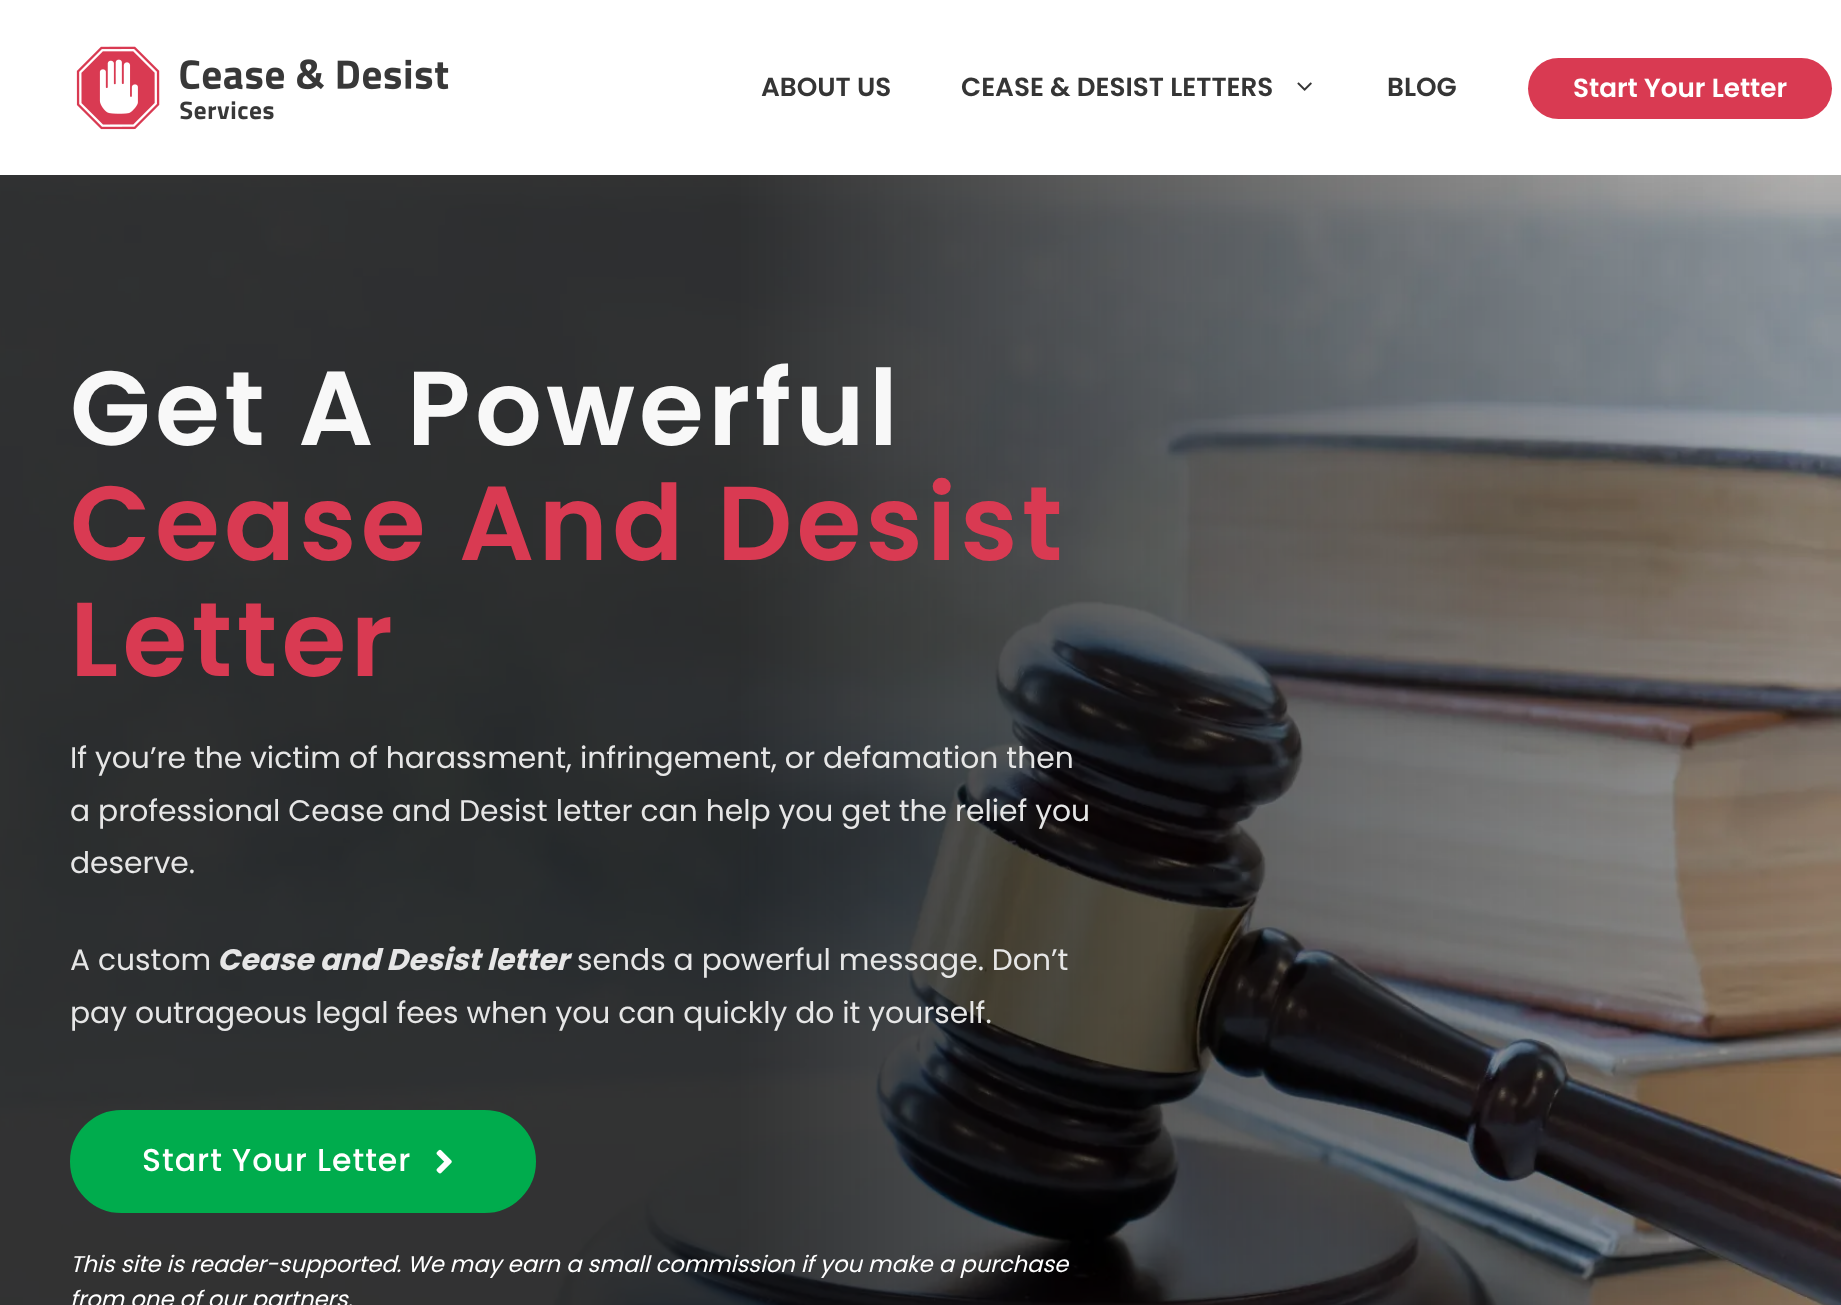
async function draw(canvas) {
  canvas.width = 1841;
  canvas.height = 1305;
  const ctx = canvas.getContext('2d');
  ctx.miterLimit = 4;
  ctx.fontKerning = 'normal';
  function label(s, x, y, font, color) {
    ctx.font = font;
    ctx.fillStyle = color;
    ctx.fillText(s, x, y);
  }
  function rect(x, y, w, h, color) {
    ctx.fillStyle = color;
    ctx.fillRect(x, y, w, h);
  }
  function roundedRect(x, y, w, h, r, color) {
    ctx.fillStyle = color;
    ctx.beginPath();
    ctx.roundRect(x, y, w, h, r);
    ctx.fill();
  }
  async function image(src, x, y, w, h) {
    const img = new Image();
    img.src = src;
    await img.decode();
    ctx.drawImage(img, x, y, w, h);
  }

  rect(0, 0, 1841, 1305, '#fff');
  await image('assets/img1.png', 76, 46, 373, 84);
  label('ABOUT US', 761, 96, '600 26.25px Poppins', '#353535');
  label('CEASE & DESIST LETTERS', 961, 96, '600 26.25px Poppins', '#353535');
  await image('assets/img2.png', 1297, 82, 15, 9);
  label('BLOG', 1387, 96, '600 26.25px Poppins', '#353535');
  roundedRect(1528, 58, 304, 61, 30.5, '#d93a52');
  label('Start Your Letter', 1573, 97, '600 26.25px Poppins', '#fff');
  await image('assets/img3.png', 0, 175, 1841, 1130);
  ctx.letterSpacing = '4.25px';
  label('Get A Powerful', 70, 445, '600 105px Poppins', '#f8f8f8');
  label('Cease And Desist', 70, 560, '600 105px Poppins', '#d93a52');
  label('Letter', 70, 676, '600 105px Poppins', '#d93a52');
  ctx.letterSpacing = '0px';
  label('If you’re the victim of harassment, infringement, or defamation then', 70, 768, '29.75px Poppins', '#e6e6e6');
  label('a professional Cease and Desist letter can help you get the relief you', 70, 821, '29.75px Poppins', '#e6e6e6');
  label('deserve.', 70, 873, '29.75px Poppins', '#e6e6e6');
  label('A custom', 70, 970, '29.75px Poppins', '#e6e6e6');
  label('Cease and Desist letter', 217, 970, 'italic bold 29.75px Poppins', '#e6e6e6');
  label('sends a powerful message. Don’t', 577, 970, '29.75px Poppins', '#e6e6e6');
  label('pay outrageous legal fees when you can quickly do it yourself.', 70, 1023, '29.75px Poppins', '#e6e6e6');
  ctx.fillStyle = '#00ac4d';
  ctx.beginPath();
  ctx.roundRect(71, 1111, 464, 101, 50.5);
  ctx.fill();
  ctx.strokeStyle = '#00ac4d';
  ctx.lineWidth = 2;
  ctx.stroke();
  ctx.letterSpacing = '1px';
  label('Start Your Letter', 142, 1171, '500 31.5px Poppins', '#fff');
  await image('assets/img4.png', 436, 1149, 16, 25);
  ctx.letterSpacing = '0px';
  label('This site is reader-supported. We may earn a small commission if you make a purchase', 70, 1272, 'italic 22.75px Poppins', '#fff');
  label('from one of our partners.', 70, 1307, 'italic 22.75px Poppins', '#fff');
}

draw(document.querySelector('canvas'));
